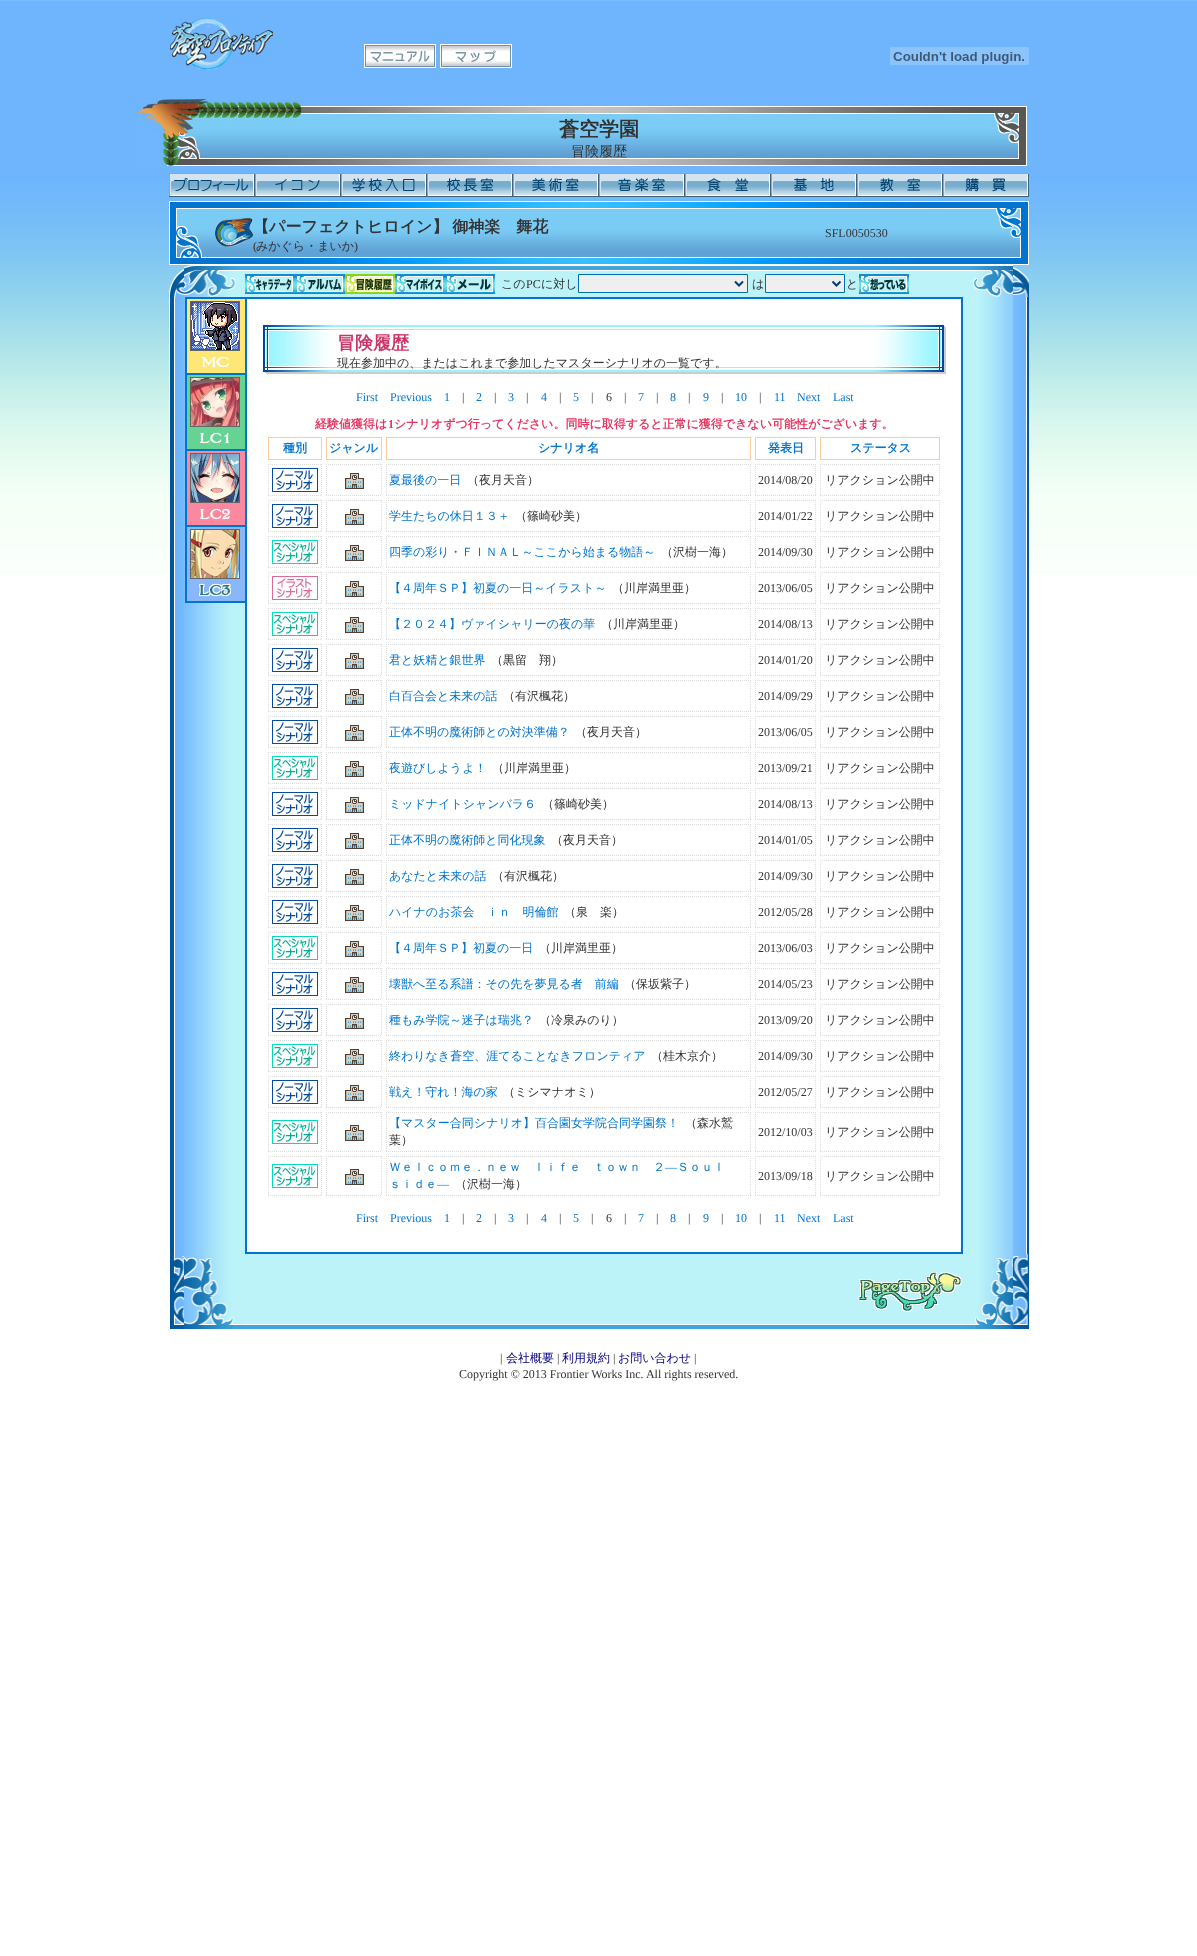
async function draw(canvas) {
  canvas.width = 1197;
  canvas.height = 1956;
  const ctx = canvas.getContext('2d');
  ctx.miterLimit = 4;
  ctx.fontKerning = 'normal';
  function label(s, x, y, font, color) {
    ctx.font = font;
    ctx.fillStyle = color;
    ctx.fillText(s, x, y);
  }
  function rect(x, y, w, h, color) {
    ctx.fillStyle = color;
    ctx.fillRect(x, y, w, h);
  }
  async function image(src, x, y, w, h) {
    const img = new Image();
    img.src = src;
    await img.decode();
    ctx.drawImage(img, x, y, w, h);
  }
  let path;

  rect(0, 0, 1197, 1956, '#fff');
  await image('assets/img1.png', 0, 0, 1197, 574);
  await image('assets/img2.png', 170, 18, 103, 52);
  await image('assets/img3.png', 364, 44, 72, 24);
  await image('assets/img4.png', 440, 44, 72, 24);
  await image('assets/img5.png', 890, 47, 139, 18);
  await image('assets/img6.png', 135, 98, 896, 72);
  label('蒼空学園', 559, 136, 'bold 20px WenQuanYi Zen Hei', '#333');
  label('冒険履歴', 571, 156, '500 14px WenQuanYi Zen Hei', '#333');
  await image('assets/img7.png', 169, 173, 86, 24);
  await image('assets/img8.png', 255, 173, 86, 24);
  await image('assets/img9.png', 341, 173, 86, 24);
  await image('assets/img10.png', 427, 173, 86, 24);
  await image('assets/img11.png', 513, 173, 86, 24);
  await image('assets/img12.png', 599, 173, 86, 24);
  await image('assets/img13.png', 685, 173, 86, 24);
  await image('assets/img14.png', 771, 173, 86, 24);
  await image('assets/img15.png', 857, 173, 86, 24);
  await image('assets/img16.png', 943, 173, 86, 24);
  await image('assets/img17.png', 169, 201, 46, 64);
  await image('assets/img18.png', 215, 201, 38, 64);
  await image('assets/img19.png', 253, 201, 572, 64);
  ctx.wordSpacing = '-1px';
  label('【パーフェクトヒロイン】 御神楽　舞花', 253, 232, 'bold 16px WenQuanYi Zen Hei', '#333');
  ctx.wordSpacing = '0px';
  label('(', 253, 250, '12px Liberation Serif', '#333');
  label('みかぐら・まいか', 256, 250, '500 12px WenQuanYi Zen Hei', '#333');
  label(')', 354, 250, '12px Liberation Serif', '#333');
  await image('assets/img20.png', 825, 201, 84, 64);
  label('SFL0050530', 825, 237, '12px Liberation Serif', '#333');
  await image('assets/img21.png', 909, 201, 80, 64);
  await image('assets/img22.png', 989, 201, 40, 64);
  await image('assets/img23.png', 169, 269, 15, 28);
  await image('assets/img24.png', 184, 265, 61, 32);
  await image('assets/img25.png', 245, 265, 718, 32);
  await image('assets/img26.png', 245, 274, 50, 20);
  await image('assets/img27.png', 295, 274, 50, 20);
  await image('assets/img28.png', 345, 274, 50, 20);
  await image('assets/img29.png', 395, 274, 50, 20);
  await image('assets/img30.png', 445, 274, 50, 20);
  label('この', 501, 288, '500 12px WenQuanYi Zen Hei', '#333');
  label('PC', 526, 288, '12px Liberation Serif', '#333');
  label('に対し', 541, 288, '500 12px WenQuanYi Zen Hei', '#333');
  ctx.fillStyle = '#efefef';
  ctx.beginPath();
  ctx.rect(578.5, 274.5, 169, 18);
  ctx.fill();
  ctx.strokeStyle = '#006eb0';
  ctx.stroke();
  path = new Path2D('M735 281.5L739 285.5L743 281.5');
  ctx.strokeStyle = '#043c78';
  ctx.lineWidth = 2;
  ctx.stroke(path);
  label('は', 752, 288, '500 12px WenQuanYi Zen Hei', '#333');
  ctx.fillStyle = '#efefef';
  ctx.beginPath();
  ctx.rect(765.5, 274.5, 79, 18);
  ctx.fill();
  ctx.strokeStyle = '#006eb0';
  ctx.lineWidth = 1;
  ctx.stroke();
  path = new Path2D('M832.5 281.5L836.5 285.5L840.5 281.5');
  ctx.strokeStyle = '#043c78';
  ctx.lineWidth = 2;
  ctx.stroke(path);
  label('と', 846, 288, '500 12px WenQuanYi Zen Hei', '#333');
  await image('assets/img31.png', 859, 274, 50, 20);
  await image('assets/img32.png', 963, 265, 50, 32);
  await image('assets/img33.png', 1013, 267, 16, 30);
  await image('assets/img34.png', 169, 297, 15, 957);
  await image('assets/img35.png', 184, 297, 61, 957);
  rect(185, 297, 60, 2, '#0074cf');
  await image('assets/img36.png', 185, 299, 60, 74);
  ctx.strokeStyle = '#666';
  ctx.lineWidth = 1;
  ctx.strokeRect(190.5, 301.5, 49, 49);
  await image('assets/img37.png', 191, 302, 48, 48);
  await image('assets/img38.png', 199, 351, 32, 17);
  rect(185, 373, 60, 2, '#0074cf');
  await image('assets/img39.png', 185, 375, 60, 74);
  ctx.strokeRect(190.5, 377.5, 49, 49);
  await image('assets/img40.png', 191, 378, 48, 48);
  await image('assets/img41.png', 199, 427, 32, 17);
  rect(185, 449, 60, 2, '#0074cf');
  await image('assets/img42.png', 185, 451, 60, 74);
  ctx.strokeRect(190.5, 453.5, 49, 49);
  await image('assets/img43.png', 191, 454, 48, 48);
  await image('assets/img44.png', 199, 503, 32, 17);
  rect(185, 525, 60, 2, '#0074cf');
  await image('assets/img45.png', 185, 527, 60, 74);
  ctx.strokeRect(190.5, 529.5, 49, 49);
  await image('assets/img46.png', 191, 530, 48, 48);
  await image('assets/img47.png', 199, 579, 32, 20);
  rect(185, 601, 60, 2, '#0074cf');
  rect(245, 297, 718, 957, '#0074cf');
  rect(247, 299, 714, 953, '#fff');
  await image('assets/img48.png', 263, 325, 74, 49);
  await image('assets/img49.png', 337, 325, 534, 49);
  label('冒険履歴', 337, 349, 'bold 18px WenQuanYi Zen Hei', '#c36');
  label('現在参加中の、またはこれまで参加したマスターシナリオの一覧です。', 337, 367, '500 12px WenQuanYi Zen Hei', '#333');
  await image('assets/img50.png', 871, 325, 75, 49);
  label('First', 356, 401, '12px Liberation Serif', '#0074cf');
  label('Previous', 390, 401, '12px Liberation Serif', '#0074cf');
  label('1', 444, 401, '12px Liberation Serif', '#0074cf');
  label('|', 462, 401, '12px Liberation Serif', '#333');
  label('2', 476, 401, '12px Liberation Serif', '#0074cf');
  label('|', 494, 401, '12px Liberation Serif', '#333');
  label('3', 508, 401, '12px Liberation Serif', '#0074cf');
  label('|', 526, 401, '12px Liberation Serif', '#333');
  label('4', 541, 401, '12px Liberation Serif', '#0074cf');
  label('|', 559, 401, '12px Liberation Serif', '#333');
  label('5', 573, 401, '12px Liberation Serif', '#0074cf');
  label('|', 591, 401, '12px Liberation Serif', '#333');
  label('6', 606, 401, '12px Liberation Serif', '#333');
  label('|', 624, 401, '12px Liberation Serif', '#333');
  label('7', 638, 401, '12px Liberation Serif', '#0074cf');
  label('|', 656, 401, '12px Liberation Serif', '#333');
  label('8', 670, 401, '12px Liberation Serif', '#0074cf');
  label('|', 688, 401, '12px Liberation Serif', '#333');
  label('9', 703, 401, '12px Liberation Serif', '#0074cf');
  label('|', 721, 401, '12px Liberation Serif', '#333');
  label('10', 735, 401, '12px Liberation Serif', '#0074cf');
  label('|', 759, 401, '12px Liberation Serif', '#333');
  label('11', 774, 401, '12px Liberation Serif', '#0074cf');
  label('Next', 797, 401, '12px Liberation Serif', '#0074cf');
  label('Last', 833, 401, '12px Liberation Serif', '#0074cf');
  label('経験値獲得は', 315, 428, 'bold 12px WenQuanYi Zen Hei', '#e73562');
  label('1', 388, 428, 'bold 12px Liberation Serif', '#e73562');
  label('シナリオずつ行ってください。同時に取得すると正常に獲得できない可能性がございます。', 394, 428, 'bold 12px WenQuanYi Zen Hei', '#e73562');
  ctx.strokeStyle = '#fc9';
  ctx.strokeRect(268.5, 437.5, 53, 22);
  label('種別', 283, 452, 'bold 12px WenQuanYi Zen Hei', '#0074cf');
  ctx.strokeRect(326.5, 437.5, 55, 22);
  label('ジャンル', 329, 452, 'bold 12px WenQuanYi Zen Hei', '#0074cf');
  ctx.strokeRect(386.5, 437.5, 364, 22);
  label('シナリオ名', 538, 452, 'bold 12px WenQuanYi Zen Hei', '#0074cf');
  ctx.strokeRect(755.5, 437.5, 60, 22);
  label('発表日', 768, 452, 'bold 12px WenQuanYi Zen Hei', '#0074cf');
  ctx.strokeRect(820.5, 437.5, 119, 22);
  label('ステータス', 850, 452, 'bold 12px WenQuanYi Zen Hei', '#0074cf');
  path = new Path2D('M268 464.5H322M321.5 464V496M268 495.5H322M268.5 464V496');
  ctx.strokeStyle = '#dcdcdc';
  ctx.setLineDash([1, 1]);
  ctx.stroke(path);
  await image('assets/img51.png', 272, 468, 46, 24);
  path = new Path2D('M326 464.5H382M381.5 464V496M326 495.5H382M326.5 464V496');
  ctx.stroke(path);
  await image('assets/img52.png', 345, 473, 19, 16);
  path = new Path2D('M386 464.5H751');
  ctx.stroke(path);
  path = new Path2D('M750.5 464V496');
  ctx.stroke(path);
  path = new Path2D('M386 495.5H751');
  ctx.stroke(path);
  path = new Path2D('M386.5 464V496');
  ctx.stroke(path);
  label('夏最後の一日', 389, 484, '500 12px WenQuanYi Zen Hei', '#0074cf');
  label('（夜月天音）', 467, 484, '500 12px WenQuanYi Zen Hei', '#333');
  path = new Path2D('M755 464.5H816M815.5 464V496M755 495.5H816M755.5 464V496');
  ctx.stroke(path);
  label('2014/08/20', 758, 484, '12px Liberation Serif', '#333');
  path = new Path2D('M820 464.5H940');
  ctx.stroke(path);
  path = new Path2D('M939.5 464V496');
  ctx.stroke(path);
  path = new Path2D('M820 495.5H940');
  ctx.stroke(path);
  path = new Path2D('M820.5 464V496');
  ctx.stroke(path);
  label('リアクション公開中', 825, 484, '500 12px WenQuanYi Zen Hei', '#333');
  path = new Path2D('M268 500.5H322M321.5 500V532M268 531.5H322M268.5 500V532');
  ctx.stroke(path);
  await image('assets/img51.png', 272, 504, 46, 24);
  path = new Path2D('M326 500.5H382M381.5 500V532M326 531.5H382M326.5 500V532');
  ctx.stroke(path);
  await image('assets/img52.png', 345, 509, 19, 16);
  path = new Path2D('M386 500.5H751');
  ctx.stroke(path);
  path = new Path2D('M750.5 500V532');
  ctx.stroke(path);
  path = new Path2D('M386 531.5H751');
  ctx.stroke(path);
  path = new Path2D('M386.5 500V532');
  ctx.stroke(path);
  label('学生たちの休日１３＋', 389, 520, '500 12px WenQuanYi Zen Hei', '#0074cf');
  label('（篠崎砂美）', 515, 520, '500 12px WenQuanYi Zen Hei', '#333');
  path = new Path2D('M755 500.5H816M815.5 500V532M755 531.5H816M755.5 500V532');
  ctx.stroke(path);
  label('2014/01/22', 758, 520, '12px Liberation Serif', '#333');
  path = new Path2D('M820 500.5H940');
  ctx.stroke(path);
  path = new Path2D('M939.5 500V532');
  ctx.stroke(path);
  path = new Path2D('M820 531.5H940');
  ctx.stroke(path);
  path = new Path2D('M820.5 500V532');
  ctx.stroke(path);
  label('リアクション公開中', 825, 520, '500 12px WenQuanYi Zen Hei', '#333');
  path = new Path2D('M268 536.5H322M321.5 536V568M268 567.5H322M268.5 536V568');
  ctx.stroke(path);
  await image('assets/img53.png', 272, 540, 46, 24);
  path = new Path2D('M326 536.5H382M381.5 536V568M326 567.5H382M326.5 536V568');
  ctx.stroke(path);
  await image('assets/img52.png', 345, 545, 19, 16);
  path = new Path2D('M386 536.5H751');
  ctx.stroke(path);
  path = new Path2D('M750.5 536V568');
  ctx.stroke(path);
  path = new Path2D('M386 567.5H751');
  ctx.stroke(path);
  path = new Path2D('M386.5 536V568');
  ctx.stroke(path);
  label('四季の彩り・ＦＩＮＡＬ～ここから始まる物語～', 389, 556, '500 12px WenQuanYi Zen Hei', '#0074cf');
  label('（沢樹一海）', 661, 556, '500 12px WenQuanYi Zen Hei', '#333');
  path = new Path2D('M755 536.5H816M815.5 536V568M755 567.5H816M755.5 536V568');
  ctx.stroke(path);
  label('2014/09/30', 758, 556, '12px Liberation Serif', '#333');
  path = new Path2D('M820 536.5H940');
  ctx.stroke(path);
  path = new Path2D('M939.5 536V568');
  ctx.stroke(path);
  path = new Path2D('M820 567.5H940');
  ctx.stroke(path);
  path = new Path2D('M820.5 536V568');
  ctx.stroke(path);
  label('リアクション公開中', 825, 556, '500 12px WenQuanYi Zen Hei', '#333');
  path = new Path2D('M268 572.5H322M321.5 572V604M268 603.5H322M268.5 572V604');
  ctx.stroke(path);
  await image('assets/img54.png', 272, 576, 46, 24);
  path = new Path2D('M326 572.5H382M381.5 572V604M326 603.5H382M326.5 572V604');
  ctx.stroke(path);
  await image('assets/img52.png', 345, 581, 19, 16);
  path = new Path2D('M386 572.5H751');
  ctx.stroke(path);
  path = new Path2D('M750.5 572V604');
  ctx.stroke(path);
  path = new Path2D('M386 603.5H751');
  ctx.stroke(path);
  path = new Path2D('M386.5 572V604');
  ctx.stroke(path);
  label('【４周年ＳＰ】初夏の一日～イラスト～', 389, 592, '500 12px WenQuanYi Zen Hei', '#0074cf');
  label('（川岸満里亜）', 612, 592, '500 12px WenQuanYi Zen Hei', '#333');
  path = new Path2D('M755 572.5H816M815.5 572V604M755 603.5H816M755.5 572V604');
  ctx.stroke(path);
  label('2013/06/05', 758, 592, '12px Liberation Serif', '#333');
  path = new Path2D('M820 572.5H940');
  ctx.stroke(path);
  path = new Path2D('M939.5 572V604');
  ctx.stroke(path);
  path = new Path2D('M820 603.5H940');
  ctx.stroke(path);
  path = new Path2D('M820.5 572V604');
  ctx.stroke(path);
  label('リアクション公開中', 825, 592, '500 12px WenQuanYi Zen Hei', '#333');
  path = new Path2D('M268 608.5H322M321.5 608V640M268 639.5H322M268.5 608V640');
  ctx.stroke(path);
  await image('assets/img53.png', 272, 612, 46, 24);
  path = new Path2D('M326 608.5H382M381.5 608V640M326 639.5H382M326.5 608V640');
  ctx.stroke(path);
  await image('assets/img52.png', 345, 617, 19, 16);
  path = new Path2D('M386 608.5H751');
  ctx.stroke(path);
  path = new Path2D('M750.5 608V640');
  ctx.stroke(path);
  path = new Path2D('M386 639.5H751');
  ctx.stroke(path);
  path = new Path2D('M386.5 608V640');
  ctx.stroke(path);
  label('【２０２４】ヴァイシャリーの夜の華', 389, 628, '500 12px WenQuanYi Zen Hei', '#0074cf');
  label('（川岸満里亜）', 601, 628, '500 12px WenQuanYi Zen Hei', '#333');
  path = new Path2D('M755 608.5H816M815.5 608V640M755 639.5H816M755.5 608V640');
  ctx.stroke(path);
  label('2014/08/13', 758, 628, '12px Liberation Serif', '#333');
  path = new Path2D('M820 608.5H940');
  ctx.stroke(path);
  path = new Path2D('M939.5 608V640');
  ctx.stroke(path);
  path = new Path2D('M820 639.5H940');
  ctx.stroke(path);
  path = new Path2D('M820.5 608V640');
  ctx.stroke(path);
  label('リアクション公開中', 825, 628, '500 12px WenQuanYi Zen Hei', '#333');
  path = new Path2D('M268 644.5H322M321.5 644V676M268 675.5H322M268.5 644V676');
  ctx.stroke(path);
  await image('assets/img51.png', 272, 648, 46, 24);
  path = new Path2D('M326 644.5H382M381.5 644V676M326 675.5H382M326.5 644V676');
  ctx.stroke(path);
  await image('assets/img52.png', 345, 653, 19, 16);
  path = new Path2D('M386 644.5H751');
  ctx.stroke(path);
  path = new Path2D('M750.5 644V676');
  ctx.stroke(path);
  path = new Path2D('M386 675.5H751');
  ctx.stroke(path);
  path = new Path2D('M386.5 644V676');
  ctx.stroke(path);
  label('君と妖精と銀世界', 389, 664, '500 12px WenQuanYi Zen Hei', '#0074cf');
  label('（黒留　翔）', 491, 664, '500 12px WenQuanYi Zen Hei', '#333');
  path = new Path2D('M755 644.5H816M815.5 644V676M755 675.5H816M755.5 644V676');
  ctx.stroke(path);
  label('2014/01/20', 758, 664, '12px Liberation Serif', '#333');
  path = new Path2D('M820 644.5H940');
  ctx.stroke(path);
  path = new Path2D('M939.5 644V676');
  ctx.stroke(path);
  path = new Path2D('M820 675.5H940');
  ctx.stroke(path);
  path = new Path2D('M820.5 644V676');
  ctx.stroke(path);
  label('リアクション公開中', 825, 664, '500 12px WenQuanYi Zen Hei', '#333');
  path = new Path2D('M268 680.5H322M321.5 680V712M268 711.5H322M268.5 680V712');
  ctx.stroke(path);
  await image('assets/img51.png', 272, 684, 46, 24);
  path = new Path2D('M326 680.5H382M381.5 680V712M326 711.5H382M326.5 680V712');
  ctx.stroke(path);
  await image('assets/img52.png', 345, 689, 19, 16);
  path = new Path2D('M386 680.5H751');
  ctx.stroke(path);
  path = new Path2D('M750.5 680V712');
  ctx.stroke(path);
  path = new Path2D('M386 711.5H751');
  ctx.stroke(path);
  path = new Path2D('M386.5 680V712');
  ctx.stroke(path);
  label('白百合会と未来の話', 389, 700, '500 12px WenQuanYi Zen Hei', '#0074cf');
  label('（有沢楓花）', 503, 700, '500 12px WenQuanYi Zen Hei', '#333');
  path = new Path2D('M755 680.5H816M815.5 680V712M755 711.5H816M755.5 680V712');
  ctx.stroke(path);
  label('2014/09/29', 758, 700, '12px Liberation Serif', '#333');
  path = new Path2D('M820 680.5H940');
  ctx.stroke(path);
  path = new Path2D('M939.5 680V712');
  ctx.stroke(path);
  path = new Path2D('M820 711.5H940');
  ctx.stroke(path);
  path = new Path2D('M820.5 680V712');
  ctx.stroke(path);
  label('リアクション公開中', 825, 700, '500 12px WenQuanYi Zen Hei', '#333');
  path = new Path2D('M268 716.5H322M321.5 716V748M268 747.5H322M268.5 716V748');
  ctx.stroke(path);
  await image('assets/img51.png', 272, 720, 46, 24);
  path = new Path2D('M326 716.5H382M381.5 716V748M326 747.5H382M326.5 716V748');
  ctx.stroke(path);
  await image('assets/img52.png', 345, 725, 19, 16);
  path = new Path2D('M386 716.5H751');
  ctx.stroke(path);
  path = new Path2D('M750.5 716V748');
  ctx.stroke(path);
  path = new Path2D('M386 747.5H751');
  ctx.stroke(path);
  path = new Path2D('M386.5 716V748');
  ctx.stroke(path);
  label('正体不明の魔術師との対決準備？', 389, 736, '500 12px WenQuanYi Zen Hei', '#0074cf');
  label('（夜月天音）', 575, 736, '500 12px WenQuanYi Zen Hei', '#333');
  path = new Path2D('M755 716.5H816M815.5 716V748M755 747.5H816M755.5 716V748');
  ctx.stroke(path);
  label('2013/06/05', 758, 736, '12px Liberation Serif', '#333');
  path = new Path2D('M820 716.5H940');
  ctx.stroke(path);
  path = new Path2D('M939.5 716V748');
  ctx.stroke(path);
  path = new Path2D('M820 747.5H940');
  ctx.stroke(path);
  path = new Path2D('M820.5 716V748');
  ctx.stroke(path);
  label('リアクション公開中', 825, 736, '500 12px WenQuanYi Zen Hei', '#333');
  path = new Path2D('M268 752.5H322M321.5 752V784M268 783.5H322M268.5 752V784');
  ctx.stroke(path);
  await image('assets/img53.png', 272, 756, 46, 24);
  path = new Path2D('M326 752.5H382M381.5 752V784M326 783.5H382M326.5 752V784');
  ctx.stroke(path);
  await image('assets/img52.png', 345, 761, 19, 16);
  path = new Path2D('M386 752.5H751');
  ctx.stroke(path);
  path = new Path2D('M750.5 752V784');
  ctx.stroke(path);
  path = new Path2D('M386 783.5H751');
  ctx.stroke(path);
  path = new Path2D('M386.5 752V784');
  ctx.stroke(path);
  label('夜遊びしようよ！', 389, 772, '500 12px WenQuanYi Zen Hei', '#0074cf');
  label('（川岸満里亜）', 492, 772, '500 12px WenQuanYi Zen Hei', '#333');
  path = new Path2D('M755 752.5H816M815.5 752V784M755 783.5H816M755.5 752V784');
  ctx.stroke(path);
  label('2013/09/21', 758, 772, '12px Liberation Serif', '#333');
  path = new Path2D('M820 752.5H940');
  ctx.stroke(path);
  path = new Path2D('M939.5 752V784');
  ctx.stroke(path);
  path = new Path2D('M820 783.5H940');
  ctx.stroke(path);
  path = new Path2D('M820.5 752V784');
  ctx.stroke(path);
  label('リアクション公開中', 825, 772, '500 12px WenQuanYi Zen Hei', '#333');
  path = new Path2D('M268 788.5H322M321.5 788V820M268 819.5H322M268.5 788V820');
  ctx.stroke(path);
  await image('assets/img51.png', 272, 792, 46, 24);
  path = new Path2D('M326 788.5H382M381.5 788V820M326 819.5H382M326.5 788V820');
  ctx.stroke(path);
  await image('assets/img52.png', 345, 797, 19, 16);
  path = new Path2D('M386 788.5H751');
  ctx.stroke(path);
  path = new Path2D('M750.5 788V820');
  ctx.stroke(path);
  path = new Path2D('M386 819.5H751');
  ctx.stroke(path);
  path = new Path2D('M386.5 788V820');
  ctx.stroke(path);
  label('ミッドナイトシャンバラ６', 389, 808, '500 12px WenQuanYi Zen Hei', '#0074cf');
  label('（篠崎砂美）', 542, 808, '500 12px WenQuanYi Zen Hei', '#333');
  path = new Path2D('M755 788.5H816M815.5 788V820M755 819.5H816M755.5 788V820');
  ctx.stroke(path);
  label('2014/08/13', 758, 808, '12px Liberation Serif', '#333');
  path = new Path2D('M820 788.5H940');
  ctx.stroke(path);
  path = new Path2D('M939.5 788V820');
  ctx.stroke(path);
  path = new Path2D('M820 819.5H940');
  ctx.stroke(path);
  path = new Path2D('M820.5 788V820');
  ctx.stroke(path);
  label('リアクション公開中', 825, 808, '500 12px WenQuanYi Zen Hei', '#333');
  path = new Path2D('M268 824.5H322M321.5 824V856M268 855.5H322M268.5 824V856');
  ctx.stroke(path);
  await image('assets/img51.png', 272, 828, 46, 24);
  path = new Path2D('M326 824.5H382M381.5 824V856M326 855.5H382M326.5 824V856');
  ctx.stroke(path);
  await image('assets/img52.png', 345, 833, 19, 16);
  path = new Path2D('M386 824.5H751');
  ctx.stroke(path);
  path = new Path2D('M750.5 824V856');
  ctx.stroke(path);
  path = new Path2D('M386 855.5H751');
  ctx.stroke(path);
  path = new Path2D('M386.5 824V856');
  ctx.stroke(path);
  label('正体不明の魔術師と同化現象', 389, 844, '500 12px WenQuanYi Zen Hei', '#0074cf');
  label('（夜月天音）', 551, 844, '500 12px WenQuanYi Zen Hei', '#333');
  path = new Path2D('M755 824.5H816M815.5 824V856M755 855.5H816M755.5 824V856');
  ctx.stroke(path);
  label('2014/01/05', 758, 844, '12px Liberation Serif', '#333');
  path = new Path2D('M820 824.5H940');
  ctx.stroke(path);
  path = new Path2D('M939.5 824V856');
  ctx.stroke(path);
  path = new Path2D('M820 855.5H940');
  ctx.stroke(path);
  path = new Path2D('M820.5 824V856');
  ctx.stroke(path);
  label('リアクション公開中', 825, 844, '500 12px WenQuanYi Zen Hei', '#333');
  path = new Path2D('M268 860.5H322M321.5 860V892M268 891.5H322M268.5 860V892');
  ctx.stroke(path);
  await image('assets/img51.png', 272, 864, 46, 24);
  path = new Path2D('M326 860.5H382M381.5 860V892M326 891.5H382M326.5 860V892');
  ctx.stroke(path);
  await image('assets/img52.png', 345, 869, 19, 16);
  path = new Path2D('M386 860.5H751');
  ctx.stroke(path);
  path = new Path2D('M750.5 860V892');
  ctx.stroke(path);
  path = new Path2D('M386 891.5H751');
  ctx.stroke(path);
  path = new Path2D('M386.5 860V892');
  ctx.stroke(path);
  label('あなたと未来の話', 389, 880, '500 12px WenQuanYi Zen Hei', '#0074cf');
  label('（有沢楓花）', 492, 880, '500 12px WenQuanYi Zen Hei', '#333');
  path = new Path2D('M755 860.5H816M815.5 860V892M755 891.5H816M755.5 860V892');
  ctx.stroke(path);
  label('2014/09/30', 758, 880, '12px Liberation Serif', '#333');
  path = new Path2D('M820 860.5H940');
  ctx.stroke(path);
  path = new Path2D('M939.5 860V892');
  ctx.stroke(path);
  path = new Path2D('M820 891.5H940');
  ctx.stroke(path);
  path = new Path2D('M820.5 860V892');
  ctx.stroke(path);
  label('リアクション公開中', 825, 880, '500 12px WenQuanYi Zen Hei', '#333');
  path = new Path2D('M268 896.5H322M321.5 896V928M268 927.5H322M268.5 896V928');
  ctx.stroke(path);
  await image('assets/img51.png', 272, 900, 46, 24);
  path = new Path2D('M326 896.5H382M381.5 896V928M326 927.5H382M326.5 896V928');
  ctx.stroke(path);
  await image('assets/img52.png', 345, 905, 19, 16);
  path = new Path2D('M386 896.5H751');
  ctx.stroke(path);
  path = new Path2D('M750.5 896V928');
  ctx.stroke(path);
  path = new Path2D('M386 927.5H751');
  ctx.stroke(path);
  path = new Path2D('M386.5 896V928');
  ctx.stroke(path);
  label('ハイナのお茶会　ｉｎ　明倫館', 389, 916, '500 12px WenQuanYi Zen Hei', '#0074cf');
  label('（泉　楽）', 564, 916, '500 12px WenQuanYi Zen Hei', '#333');
  path = new Path2D('M755 896.5H816M815.5 896V928M755 927.5H816M755.5 896V928');
  ctx.stroke(path);
  label('2012/05/28', 758, 916, '12px Liberation Serif', '#333');
  path = new Path2D('M820 896.5H940');
  ctx.stroke(path);
  path = new Path2D('M939.5 896V928');
  ctx.stroke(path);
  path = new Path2D('M820 927.5H940');
  ctx.stroke(path);
  path = new Path2D('M820.5 896V928');
  ctx.stroke(path);
  label('リアクション公開中', 825, 916, '500 12px WenQuanYi Zen Hei', '#333');
  path = new Path2D('M268 932.5H322M321.5 932V964M268 963.5H322M268.5 932V964');
  ctx.stroke(path);
  await image('assets/img53.png', 272, 936, 46, 24);
  path = new Path2D('M326 932.5H382M381.5 932V964M326 963.5H382M326.5 932V964');
  ctx.stroke(path);
  await image('assets/img52.png', 345, 941, 19, 16);
  path = new Path2D('M386 932.5H751');
  ctx.stroke(path);
  path = new Path2D('M750.5 932V964');
  ctx.stroke(path);
  path = new Path2D('M386 963.5H751');
  ctx.stroke(path);
  path = new Path2D('M386.5 932V964');
  ctx.stroke(path);
  label('【４周年ＳＰ】初夏の一日', 389, 952, '500 12px WenQuanYi Zen Hei', '#0074cf');
  label('（川岸満里亜）', 539, 952, '500 12px WenQuanYi Zen Hei', '#333');
  path = new Path2D('M755 932.5H816M815.5 932V964M755 963.5H816M755.5 932V964');
  ctx.stroke(path);
  label('2013/06/03', 758, 952, '12px Liberation Serif', '#333');
  path = new Path2D('M820 932.5H940');
  ctx.stroke(path);
  path = new Path2D('M939.5 932V964');
  ctx.stroke(path);
  path = new Path2D('M820 963.5H940');
  ctx.stroke(path);
  path = new Path2D('M820.5 932V964');
  ctx.stroke(path);
  label('リアクション公開中', 825, 952, '500 12px WenQuanYi Zen Hei', '#333');
  path = new Path2D('M268 968.5H322M321.5 968V1000M268 999.5H322M268.5 968V1000');
  ctx.stroke(path);
  await image('assets/img51.png', 272, 972, 46, 24);
  path = new Path2D('M326 968.5H382M381.5 968V1000M326 999.5H382M326.5 968V1000');
  ctx.stroke(path);
  await image('assets/img52.png', 345, 977, 19, 16);
  path = new Path2D('M386 968.5H751');
  ctx.stroke(path);
  path = new Path2D('M750.5 968V1000');
  ctx.stroke(path);
  path = new Path2D('M386 999.5H751');
  ctx.stroke(path);
  path = new Path2D('M386.5 968V1000');
  ctx.stroke(path);
  label('壊獣へ至る系譜：その先を夢見る者　前編', 389, 988, '500 12px WenQuanYi Zen Hei', '#0074cf');
  label('（保坂紫子）', 624, 988, '500 12px WenQuanYi Zen Hei', '#333');
  path = new Path2D('M755 968.5H816M815.5 968V1000M755 999.5H816M755.5 968V1000');
  ctx.stroke(path);
  label('2014/05/23', 758, 988, '12px Liberation Serif', '#333');
  path = new Path2D('M820 968.5H940');
  ctx.stroke(path);
  path = new Path2D('M939.5 968V1000');
  ctx.stroke(path);
  path = new Path2D('M820 999.5H940');
  ctx.stroke(path);
  path = new Path2D('M820.5 968V1000');
  ctx.stroke(path);
  label('リアクション公開中', 825, 988, '500 12px WenQuanYi Zen Hei', '#333');
  path = new Path2D('M268 1004.5H322M321.5 1004V1036M268 1035.5H322M268.5 1004V1036');
  ctx.stroke(path);
  await image('assets/img51.png', 272, 1008, 46, 24);
  path = new Path2D('M326 1004.5H382M381.5 1004V1036M326 1035.5H382M326.5 1004V1036');
  ctx.stroke(path);
  await image('assets/img52.png', 345, 1013, 19, 16);
  path = new Path2D('M386 1004.5H751');
  ctx.stroke(path);
  path = new Path2D('M750.5 1004V1036');
  ctx.stroke(path);
  path = new Path2D('M386 1035.5H751');
  ctx.stroke(path);
  path = new Path2D('M386.5 1004V1036');
  ctx.stroke(path);
  label('種もみ学院～迷子は瑞兆？', 389, 1024, '500 12px WenQuanYi Zen Hei', '#0074cf');
  label('（冷泉みのり）', 539, 1024, '500 12px WenQuanYi Zen Hei', '#333');
  path = new Path2D('M755 1004.5H816M815.5 1004V1036M755 1035.5H816M755.5 1004V1036');
  ctx.stroke(path);
  label('2013/09/20', 758, 1024, '12px Liberation Serif', '#333');
  path = new Path2D('M820 1004.5H940');
  ctx.stroke(path);
  path = new Path2D('M939.5 1004V1036');
  ctx.stroke(path);
  path = new Path2D('M820 1035.5H940');
  ctx.stroke(path);
  path = new Path2D('M820.5 1004V1036');
  ctx.stroke(path);
  label('リアクション公開中', 825, 1024, '500 12px WenQuanYi Zen Hei', '#333');
  path = new Path2D('M268 1040.5H322M321.5 1040V1072M268 1071.5H322M268.5 1040V1072');
  ctx.stroke(path);
  await image('assets/img53.png', 272, 1044, 46, 24);
  path = new Path2D('M326 1040.5H382M381.5 1040V1072M326 1071.5H382M326.5 1040V1072');
  ctx.stroke(path);
  await image('assets/img52.png', 345, 1049, 19, 16);
  path = new Path2D('M386 1040.5H751');
  ctx.stroke(path);
  path = new Path2D('M750.5 1040V1072');
  ctx.stroke(path);
  path = new Path2D('M386 1071.5H751');
  ctx.stroke(path);
  path = new Path2D('M386.5 1040V1072');
  ctx.stroke(path);
  label('終わりなき蒼空、涯てることなきフロンティア', 389, 1060, '500 12px WenQuanYi Zen Hei', '#0074cf');
  label('（桂木京介）', 651, 1060, '500 12px WenQuanYi Zen Hei', '#333');
  path = new Path2D('M755 1040.5H816M815.5 1040V1072M755 1071.5H816M755.5 1040V1072');
  ctx.stroke(path);
  label('2014/09/30', 758, 1060, '12px Liberation Serif', '#333');
  path = new Path2D('M820 1040.5H940');
  ctx.stroke(path);
  path = new Path2D('M939.5 1040V1072');
  ctx.stroke(path);
  path = new Path2D('M820 1071.5H940');
  ctx.stroke(path);
  path = new Path2D('M820.5 1040V1072');
  ctx.stroke(path);
  label('リアクション公開中', 825, 1060, '500 12px WenQuanYi Zen Hei', '#333');
  path = new Path2D('M268 1076.5H322M321.5 1076V1108M268 1107.5H322M268.5 1076V1108');
  ctx.stroke(path);
  await image('assets/img51.png', 272, 1080, 46, 24);
  path = new Path2D('M326 1076.5H382M381.5 1076V1108M326 1107.5H382M326.5 1076V1108');
  ctx.stroke(path);
  await image('assets/img52.png', 345, 1085, 19, 16);
  path = new Path2D('M386 1076.5H751');
  ctx.stroke(path);
  path = new Path2D('M750.5 1076V1108');
  ctx.stroke(path);
  path = new Path2D('M386 1107.5H751');
  ctx.stroke(path);
  path = new Path2D('M386.5 1076V1108');
  ctx.stroke(path);
  label('戦え！守れ！海の家', 389, 1096, '500 12px WenQuanYi Zen Hei', '#0074cf');
  label('（ミシマナオミ）', 503, 1096, '500 12px WenQuanYi Zen Hei', '#333');
  path = new Path2D('M755 1076.5H816M815.5 1076V1108M755 1107.5H816M755.5 1076V1108');
  ctx.stroke(path);
  label('2012/05/27', 758, 1096, '12px Liberation Serif', '#333');
  path = new Path2D('M820 1076.5H940');
  ctx.stroke(path);
  path = new Path2D('M939.5 1076V1108');
  ctx.stroke(path);
  path = new Path2D('M820 1107.5H940');
  ctx.stroke(path);
  path = new Path2D('M820.5 1076V1108');
  ctx.stroke(path);
  label('リアクション公開中', 825, 1096, '500 12px WenQuanYi Zen Hei', '#333');
  path = new Path2D('M268 1112.5H322M321.5 1112V1152M268 1151.5H322M268.5 1112V1152');
  ctx.stroke(path);
  await image('assets/img53.png', 272, 1120, 46, 24);
  path = new Path2D('M326 1112.5H382M381.5 1112V1152M326 1151.5H382M326.5 1112V1152');
  ctx.stroke(path);
  await image('assets/img52.png', 345, 1125, 19, 16);
  path = new Path2D('M386 1112.5H751');
  ctx.stroke(path);
  path = new Path2D('M750.5 1112V1152');
  ctx.stroke(path);
  path = new Path2D('M386 1151.5H751');
  ctx.stroke(path);
  path = new Path2D('M386.5 1112V1152');
  ctx.stroke(path);
  label('【マスター合同シナリオ】百合園女学院合同学園祭！', 389, 1127, '500 12px WenQuanYi Zen Hei', '#0074cf');
  label('（森水鷲', 685, 1127, '500 12px WenQuanYi Zen Hei', '#333');
  label('葉）', 389, 1144, '500 12px WenQuanYi Zen Hei', '#333');
  path = new Path2D('M755 1112.5H816M815.5 1112V1152M755 1151.5H816M755.5 1112V1152');
  ctx.stroke(path);
  label('2012/10/03', 758, 1136, '12px Liberation Serif', '#333');
  path = new Path2D('M820 1112.5H940');
  ctx.stroke(path);
  path = new Path2D('M939.5 1112V1152');
  ctx.stroke(path);
  path = new Path2D('M820 1151.5H940');
  ctx.stroke(path);
  path = new Path2D('M820.5 1112V1152');
  ctx.stroke(path);
  label('リアクション公開中', 825, 1136, '500 12px WenQuanYi Zen Hei', '#333');
  path = new Path2D('M268 1156.5H322M321.5 1156V1196M268 1195.5H322M268.5 1156V1196');
  ctx.stroke(path);
  await image('assets/img53.png', 272, 1164, 46, 24);
  path = new Path2D('M326 1156.5H382M381.5 1156V1196M326 1195.5H382M326.5 1156V1196');
  ctx.stroke(path);
  await image('assets/img52.png', 345, 1169, 19, 16);
  path = new Path2D('M386 1156.5H751');
  ctx.stroke(path);
  path = new Path2D('M750.5 1156V1196');
  ctx.stroke(path);
  path = new Path2D('M386 1195.5H751');
  ctx.stroke(path);
  path = new Path2D('M386.5 1156V1196');
  ctx.stroke(path);
  label('Ｗｅｌｃｏｍｅ．ｎｅｗ　ｌｉｆｅ　ｔｏｗｎ　２', 389, 1171, '500 12px WenQuanYi Zen Hei', '#0074cf');
  label('―', 665, 1171, '12px Liberation Serif', '#0074cf');
  label('Ｓｏｕｌ', 677, 1171, '500 12px WenQuanYi Zen Hei', '#0074cf');
  label('ｓｉｄｅ', 389, 1188, '500 12px WenQuanYi Zen Hei', '#0074cf');
  label('―', 437, 1188, '12px Liberation Serif', '#0074cf');
  label('（沢樹一海）', 455, 1188, '500 12px WenQuanYi Zen Hei', '#333');
  path = new Path2D('M755 1156.5H816M815.5 1156V1196M755 1195.5H816M755.5 1156V1196');
  ctx.stroke(path);
  label('2013/09/18', 758, 1180, '12px Liberation Serif', '#333');
  path = new Path2D('M820 1156.5H940');
  ctx.stroke(path);
  path = new Path2D('M939.5 1156V1196');
  ctx.stroke(path);
  path = new Path2D('M820 1195.5H940');
  ctx.stroke(path);
  path = new Path2D('M820.5 1156V1196');
  ctx.stroke(path);
  label('リアクション公開中', 825, 1180, '500 12px WenQuanYi Zen Hei', '#333');
  label('First', 356, 1222, '12px Liberation Serif', '#0074cf');
  label('Previous', 390, 1222, '12px Liberation Serif', '#0074cf');
  label('1', 444, 1222, '12px Liberation Serif', '#0074cf');
  label('|', 462, 1222, '12px Liberation Serif', '#333');
  label('2', 476, 1222, '12px Liberation Serif', '#0074cf');
  label('|', 494, 1222, '12px Liberation Serif', '#333');
  label('3', 508, 1222, '12px Liberation Serif', '#0074cf');
  label('|', 526, 1222, '12px Liberation Serif', '#333');
  label('4', 541, 1222, '12px Liberation Serif', '#0074cf');
  label('|', 559, 1222, '12px Liberation Serif', '#333');
  label('5', 573, 1222, '12px Liberation Serif', '#0074cf');
  label('|', 591, 1222, '12px Liberation Serif', '#333');
  label('6', 606, 1222, '12px Liberation Serif', '#333');
  label('|', 624, 1222, '12px Liberation Serif', '#333');
  label('7', 638, 1222, '12px Liberation Serif', '#0074cf');
  label('|', 656, 1222, '12px Liberation Serif', '#333');
  label('8', 670, 1222, '12px Liberation Serif', '#0074cf');
  label('|', 688, 1222, '12px Liberation Serif', '#333');
  label('9', 703, 1222, '12px Liberation Serif', '#0074cf');
  label('|', 721, 1222, '12px Liberation Serif', '#333');
  label('10', 735, 1222, '12px Liberation Serif', '#0074cf');
  label('|', 759, 1222, '12px Liberation Serif', '#333');
  label('11', 774, 1222, '12px Liberation Serif', '#0074cf');
  label('Next', 797, 1222, '12px Liberation Serif', '#0074cf');
  label('Last', 833, 1222, '12px Liberation Serif', '#0074cf');
  await image('assets/img55.png', 963, 297, 50, 957);
  await image('assets/img56.png', 1013, 297, 16, 957);
  await image('assets/img57.png', 170, 1254, 14, 75);
  await image('assets/img58.png', 184, 1254, 61, 75);
  await image('assets/img59.png', 245, 1254, 718, 75);
  await image('assets/img60.png', 858, 1271, 104, 41);
  await image('assets/img61.png', 963, 1254, 50, 75);
  await image('assets/img62.png', 1013, 1254, 16, 75);
  label('|', 500, 1362, '12px Liberation Serif', '#333');
  label('会社概要', 506, 1362, '500 12px WenQuanYi Zen Hei', '#000080');
  label('|', 557, 1362, '12px Liberation Serif', '#333');
  label('利用規約', 562, 1362, '500 12px WenQuanYi Zen Hei', '#000080');
  label('|', 613, 1362, '12px Liberation Serif', '#333');
  label('お問い合わせ', 618, 1362, '500 12px WenQuanYi Zen Hei', '#000080');
  label('|', 694, 1362, '12px Liberation Serif', '#333');
  label('Copyright © 2013 Frontier Works Inc. All rights reserved.', 459, 1378, '12px Liberation Serif', '#333');
}

draw(document.querySelector('canvas'));
